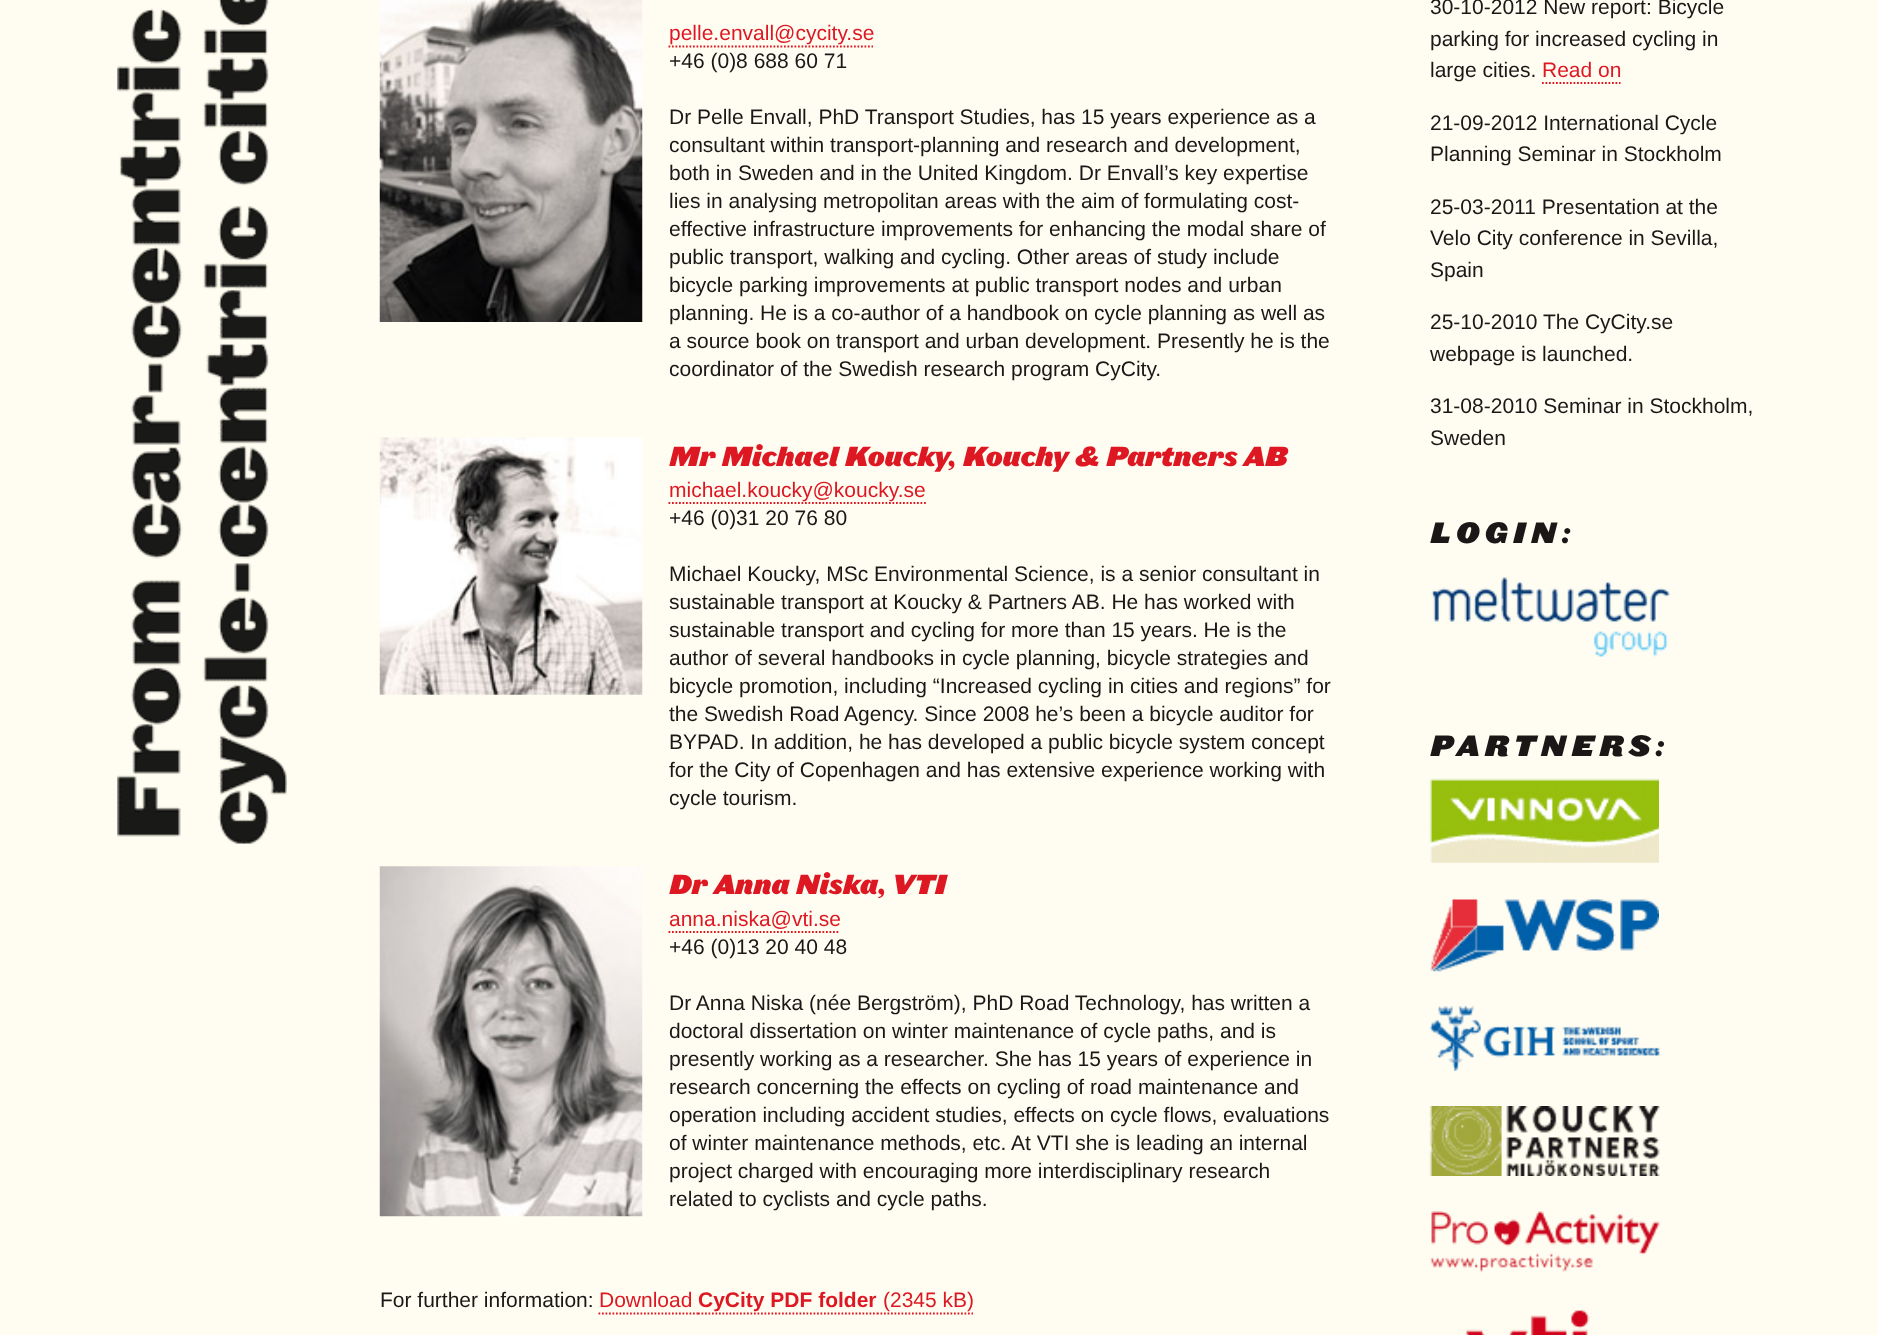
async function draw(canvas) {
  canvas.width = 1878;
  canvas.height = 1335;
  const ctx = canvas.getContext('2d');
  ctx.miterLimit = 4;
  ctx.fontKerning = 'normal';
  function label(s, x, y, font, color) {
    ctx.font = font;
    ctx.fillStyle = color;
    ctx.fillText(s, x, y);
  }
  function rect(x, y, w, h, color) {
    ctx.fillStyle = color;
    ctx.fillRect(x, y, w, h);
  }
  async function image(src, x, y, w, h) {
    const img = new Image();
    img.src = src;
    await img.decode();
    ctx.drawImage(img, x, y, w, h);
  }
  let path;

  rect(0, 0, 1878, 1335, '#fffdf2');
  await image('assets/img1.png', 117, 0, 170, 844);
  await image('assets/img2.png', 379, 0, 264, 322);
  label('pelle.envall@cycity.se', 669, 40, '21px Liberation Sans', '#de1823');
  path = new Path2D('M668.5 46.5H873');
  ctx.strokeStyle = '#de1823';
  ctx.lineWidth = 1.8;
  ctx.setLineDash([1.75, 1.75]);
  ctx.stroke(path);
  label('+46 (0)8 688 60 71', 669, 68, '21px Liberation Sans', '#1b1717');
  label('Dr Pelle Envall, PhD Transport Studies, has 15 years experience as a', 669, 124, '21px Liberation Sans', '#1b1717');
  label('consultant within transport-planning and research and development,', 669, 152, '21px Liberation Sans', '#1b1717');
  label('both in Sweden and in the United Kingdom. Dr Envall’s key expertise', 669, 180, '21px Liberation Sans', '#1b1717');
  label('lies in analysing metropolitan areas with the aim of formulating cost-', 669, 208, '21px Liberation Sans', '#1b1717');
  label('effective infrastructure improvements for enhancing the modal share of', 669, 236, '21px Liberation Sans', '#1b1717');
  label('public transport, walking and cycling. Other areas of study include', 669, 264, '21px Liberation Sans', '#1b1717');
  label('bicycle parking improvements at public transport nodes and urban', 669, 292, '21px Liberation Sans', '#1b1717');
  label('planning. He is a co-author of a handbook on cycle planning as well as', 669, 320, '21px Liberation Sans', '#1b1717');
  label('a source book on transport and urban development. Presently he is the', 669, 348, '21px Liberation Sans', '#1b1717');
  label('coordinator of the Swedish research program CyCity.', 669, 376, '21px Liberation Sans', '#1b1717');
  await image('assets/img3.png', 379, 437, 264, 258);
  label('Mr Michael Koucky, Kouchy & Partners AB', 669, 466, 'italic 900 26.25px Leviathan', '#de1823');
  label('michael.koucky@koucky.se', 669, 497, '21px Liberation Sans', '#de1823');
  path = new Path2D('M668.5 503H926');
  ctx.stroke(path);
  label('+46 (0)31 20 76 80', 669, 525, '21px Liberation Sans', '#1b1717');
  label('Michael Koucky, MSc Environmental Science, is a senior consultant in', 669, 581, '21px Liberation Sans', '#1b1717');
  label('sustainable transport at Koucky & Partners AB. He has worked with', 669, 609, '21px Liberation Sans', '#1b1717');
  label('sustainable transport and cycling for more than 15 years. He is the', 669, 637, '21px Liberation Sans', '#1b1717');
  label('author of several handbooks in cycle planning, bicycle strategies and', 669, 665, '21px Liberation Sans', '#1b1717');
  label('bicycle promotion, including “Increased cycling in cities and regions” for', 669, 693, '21px Liberation Sans', '#1b1717');
  label('the Swedish Road Agency. Since 2008 he’s been a bicycle auditor for', 669, 721, '21px Liberation Sans', '#1b1717');
  label('BYPAD. In addition, he has developed a public bicycle system concept', 669, 749, '21px Liberation Sans', '#1b1717');
  label('for the City of Copenhagen and has extensive experience working with', 669, 777, '21px Liberation Sans', '#1b1717');
  label('cycle tourism.', 669, 805, '21px Liberation Sans', '#1b1717');
  await image('assets/img4.png', 379, 866, 264, 351);
  label('Dr Anna Niska, VTI', 669, 894, 'italic 900 26.25px Leviathan', '#de1823');
  label('anna.niska@vti.se', 669, 926, '21px Liberation Sans', '#de1823');
  path = new Path2D('M668.5 932H840');
  ctx.stroke(path);
  label('+46 (0)13 20 40 48', 669, 954, '21px Liberation Sans', '#1b1717');
  label('Dr Anna Niska (née Bergström), PhD Road Technology, has written a', 669, 1010, '21px Liberation Sans', '#1b1717');
  label('doctoral dissertation on winter maintenance of cycle paths, and is', 669, 1038, '21px Liberation Sans', '#1b1717');
  label('presently working as a researcher. She has 15 years of experience in', 669, 1066, '21px Liberation Sans', '#1b1717');
  label('research concerning the effects on cycling of road maintenance and', 669, 1094, '21px Liberation Sans', '#1b1717');
  label('operation including accident studies, effects on cycle flows, evaluations', 669, 1122, '21px Liberation Sans', '#1b1717');
  label('of winter maintenance methods, etc. At VTI she is leading an internal', 669, 1150, '21px Liberation Sans', '#1b1717');
  label('project charged with encouraging more interdisciplinary research', 669, 1178, '21px Liberation Sans', '#1b1717');
  label('related to cyclists and cycle paths.', 669, 1206, '21px Liberation Sans', '#1b1717');
  label('For further information:', 380, 1307, '21px Liberation Sans', '#1b1717');
  label('Download', 599, 1307, '21px Liberation Sans', '#de1823');
  label('CyCity PDF folder', 698, 1307, 'bold 21px Liberation Sans', '#de1823');
  path = new Path2D('M598.5 1313.5H698');
  ctx.stroke(path);
  path = new Path2D('M698 1313.5H877');
  ctx.stroke(path);
  path = new Path2D('M877 1313.5H973');
  ctx.stroke(path);
  label('(2345 kB)', 883, 1307, '21px Liberation Sans', '#de1823');
  label('30-10-2012 New report: Bicycle', 1430, 14, '21px Liberation Sans', '#1b1717');
  label('parking for increased cycling in', 1430, 46, '21px Liberation Sans', '#1b1717');
  label('large cities.', 1430, 77, '21px Liberation Sans', '#1b1717');
  label('Read on', 1542, 77, '21px Liberation Sans', '#de1823');
  path = new Path2D('M1542 83H1620.5');
  ctx.stroke(path);
  label('21-09-2012 International Cycle', 1430, 130, '21px Liberation Sans', '#1b1717');
  label('Planning Seminar in Stockholm', 1430, 161, '21px Liberation Sans', '#1b1717');
  label('25-03-2011 Presentation at the', 1430, 214, '21px Liberation Sans', '#1b1717');
  label('Velo City conference in Sevilla,', 1430, 245, '21px Liberation Sans', '#1b1717');
  label('Spain', 1430, 277, '21px Liberation Sans', '#1b1717');
  label('25-10-2010 The CyCity.se', 1430, 329, '21px Liberation Sans', '#1b1717');
  label('webpage is launched.', 1430, 361, '21px Liberation Sans', '#1b1717');
  label('31-08-2010 Seminar in Stockholm,', 1430, 413, '21px Liberation Sans', '#1b1717');
  label('Sweden', 1430, 445, '21px Liberation Sans', '#1b1717');
  ctx.letterSpacing = '5.25px';
  label('LOGIN:', 1430, 543, 'italic 900 28px Leviathan', '#1b1717');
  await image('assets/img5.png', 1431, 577, 239, 81);
  label('PARTNERS:', 1430, 756, 'italic 900 28px Leviathan', '#1b1717');
  await image('assets/img6.png', 1429, 778, 230, 85);
  await image('assets/img7.png', 1429, 899, 230, 73);
  await image('assets/img8.png', 1429, 1006, 231, 65);
  await image('assets/img9.png', 1429, 1106, 231, 70);
  await image('assets/img10.png', 1429, 1211, 231, 62);
  await image('assets/img11.png', 1458, 1307, 134, 28);
}

draw(document.querySelector('canvas'));
